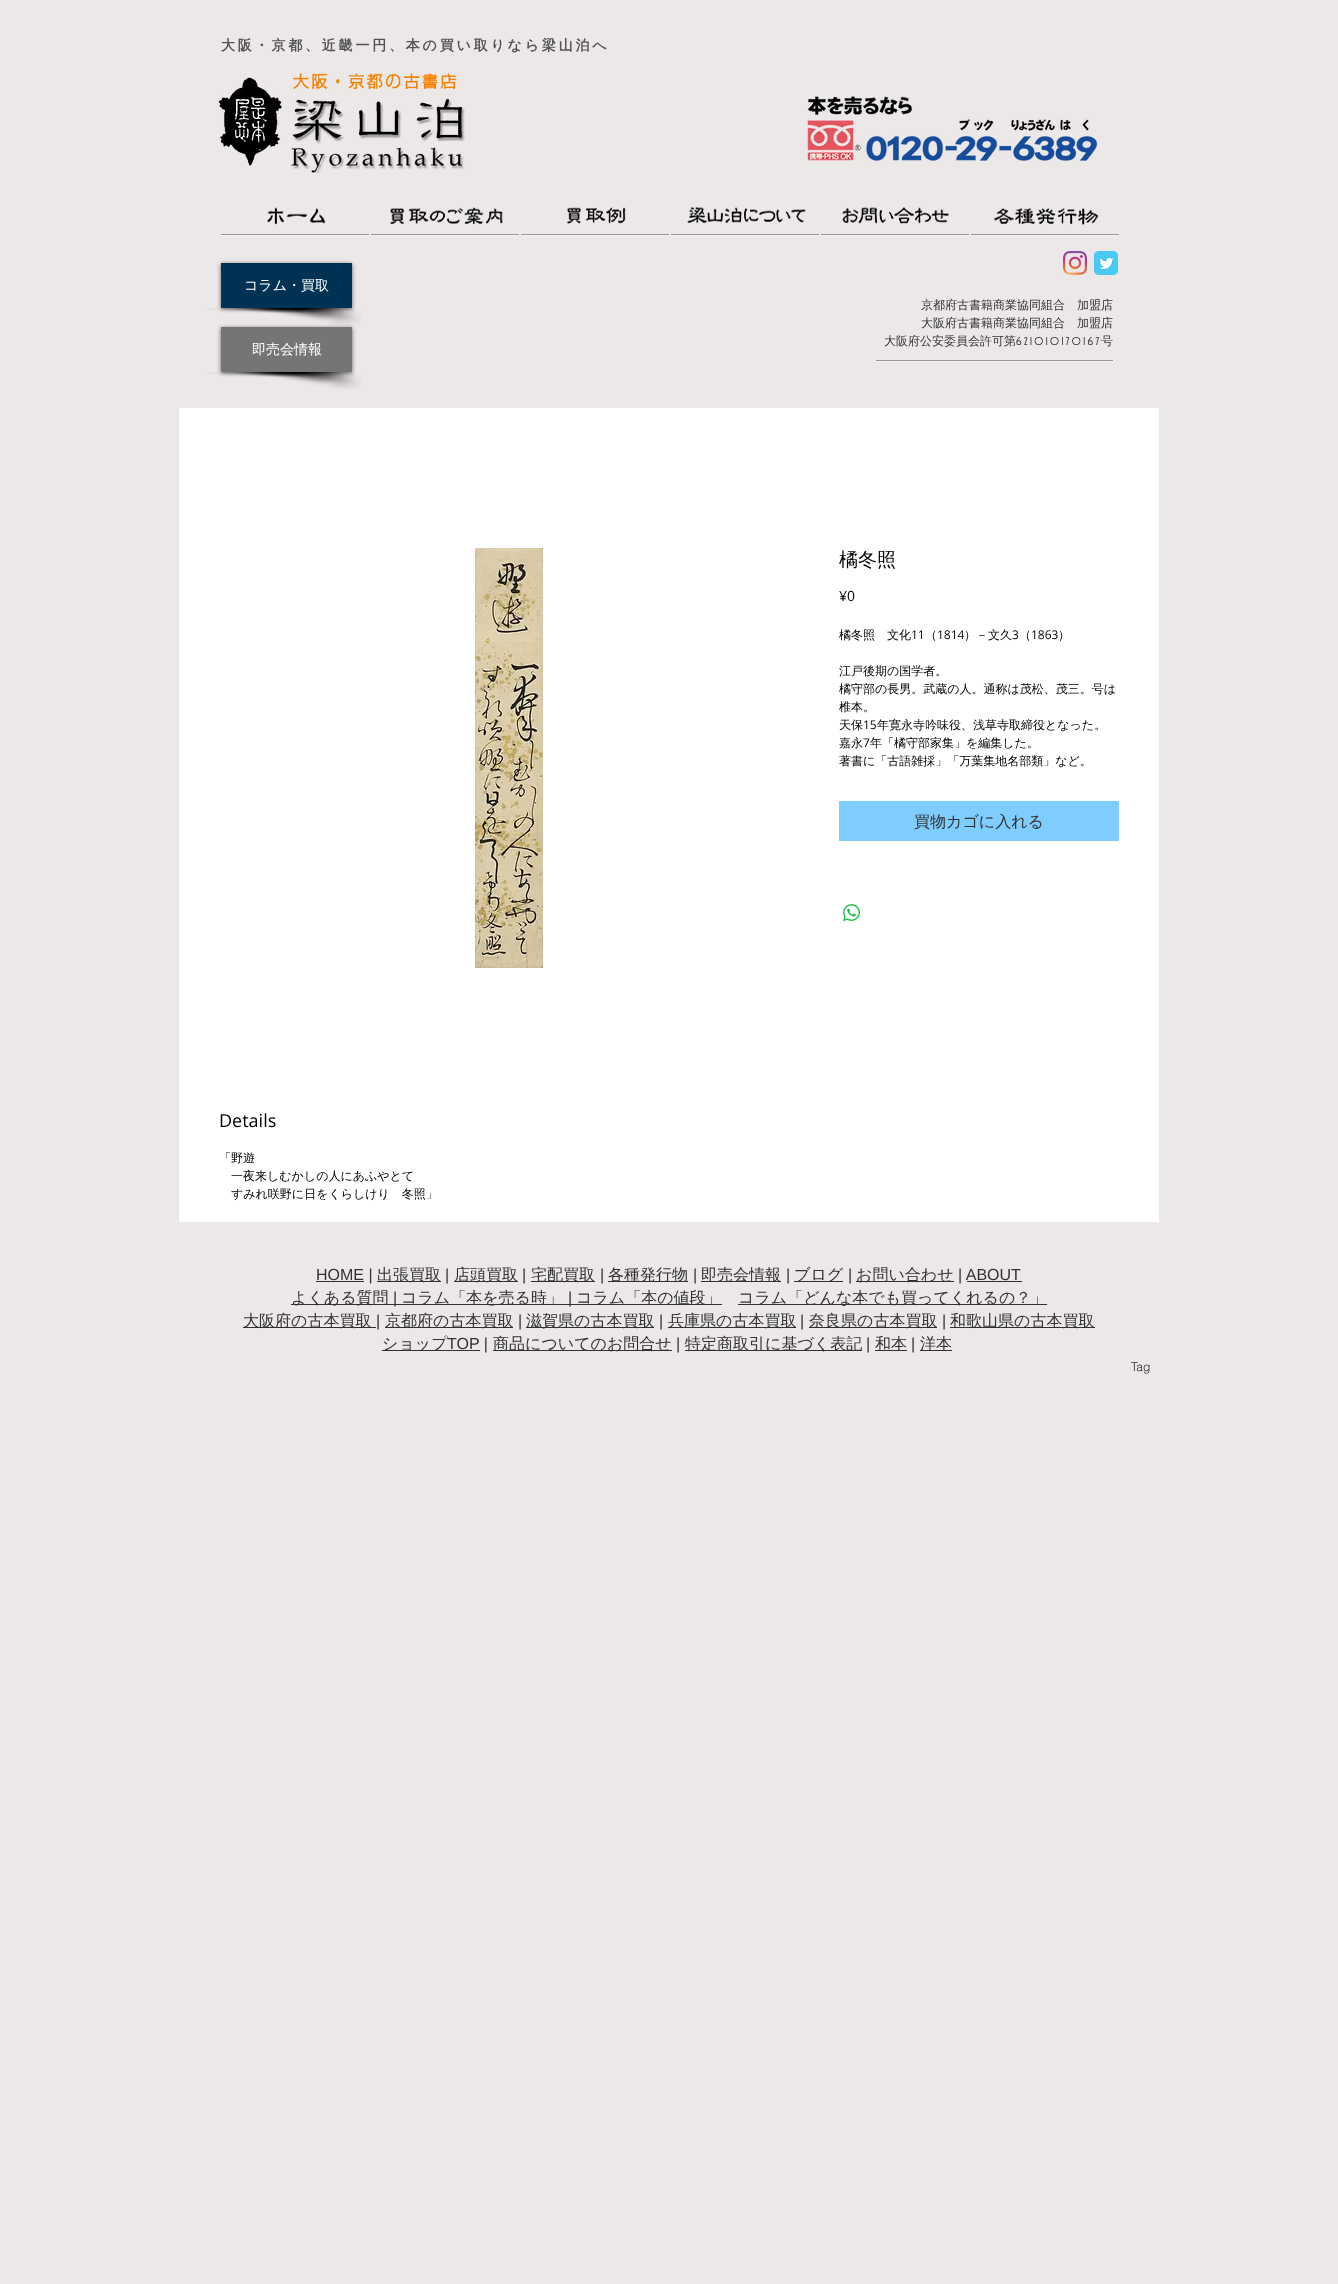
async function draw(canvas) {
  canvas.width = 1338;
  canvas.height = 2284;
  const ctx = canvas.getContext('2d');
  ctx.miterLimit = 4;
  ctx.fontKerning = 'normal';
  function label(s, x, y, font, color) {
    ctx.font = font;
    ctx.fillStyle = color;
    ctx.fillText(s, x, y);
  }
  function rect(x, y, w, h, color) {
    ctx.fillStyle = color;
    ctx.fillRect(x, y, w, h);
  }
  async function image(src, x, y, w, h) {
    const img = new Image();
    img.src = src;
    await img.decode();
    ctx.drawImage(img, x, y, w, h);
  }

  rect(0, 0, 1338, 2284, '#ece8e8');
  ctx.letterSpacing = '2.8px';
  label('大阪・京都、近畿一円、本の買い取りなら梁山泊へ', 221, 50, 'bold 14px WenQuanYi Zen Hei', '#535353');
  await image('assets/img1.png', 218, 73, 247, 100);
  await image('assets/img2.png', 807, 96, 291, 65);
  await image('assets/img3.png', 266, 207, 60, 18);
  await image('assets/img4.png', 390, 207, 113, 18);
  await image('assets/img5.png', 566, 207, 60, 17);
  await image('assets/img6.png', 687, 207, 119, 16);
  await image('assets/img7.png', 842, 207, 107, 17);
  await image('assets/img8.png', 993, 208, 106, 17);
  rect(221, 234, 148, 1, '#999797');
  rect(221, 235, 148, 1, '#f3f0f0');
  rect(371, 234, 148, 1, '#999797');
  rect(371, 235, 148, 1, '#f3f0f0');
  rect(521, 234, 148, 1, '#999797');
  rect(521, 235, 148, 1, '#f3f0f0');
  rect(671, 234, 148, 1, '#999797');
  rect(671, 235, 148, 1, '#f3f0f0');
  rect(821, 234, 148, 1, '#999797');
  rect(821, 235, 148, 1, '#f3f0f0');
  rect(971, 234, 148, 1, '#999797');
  rect(971, 235, 148, 1, '#f3f0f0');
  await image('assets/img9.png', 1063, 251, 24, 24);
  await image('assets/img10.png', 1094, 251, 24, 24);
  await image('assets/img11.png', 207, 308, 154, 18);
  ctx.fillStyle = '#00000099';
  ctx.filter = 'blur(2px)';
  ctx.beginPath();
  ctx.rect(221, 264, 131, 45);
  ctx.fill();
  ctx.filter = 'none';
  rect(221, 263, 131, 45, '#003254');
  ctx.letterSpacing = '0px';
  label('コラム・買取', 244, 290, '500 14px WenQuanYi Zen Hei', '#fff');
  label('京都府古書籍商業協同組合　加盟店', 921, 309, '500 12px WenQuanYi Zen Hei', '#313131');
  label('大阪府古書籍商業協同組合　加盟店', 921, 327, '500 12px WenQuanYi Zen Hei', '#313131');
  label('大阪府公安委員会許可第', 884, 345, '500 12px WenQuanYi Zen Hei', '#313131');
  ctx.letterSpacing = '2.4px';
  label('621010170167', 1016, 345, '12px "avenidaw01"', '#313131');
  ctx.letterSpacing = '0px';
  label('号', 1101, 345, '500 12px WenQuanYi Zen Hei', '#313131');
  await image('assets/img11.png', 207, 372, 154, 18);
  ctx.fillStyle = '#00000099';
  ctx.filter = 'blur(2px)';
  ctx.beginPath();
  ctx.rect(221, 328, 131, 45);
  ctx.fill();
  ctx.filter = 'none';
  rect(221, 327, 131, 45, '#757575');
  label('即売会情報', 252, 354, '500 14px WenQuanYi Zen Hei', '#fff');
  rect(876, 360, 237, 1, '#999797');
  rect(876, 361, 237, 1, '#f3f0f0');
  rect(179, 408, 980, 814, '#fff');
  await image('assets/img12.png', 475, 548, 68, 420);
  label('橘冬照', 839, 566, '500 19px WenQuanYi Zen Hei', '#000');
  label('¥0', 839, 601, '14px Open Sans', '#000');
  label('橘冬照　文化', 839, 639, '500 12px WenQuanYi Zen Hei', '#000');
  label('11', 911, 639, '12px Open Sans', '#000');
  label('（', 925, 639, '500 12px WenQuanYi Zen Hei', '#000');
  label('1814', 937, 639, '12px Open Sans', '#000');
  label('）－文久', 964, 639, '500 12px WenQuanYi Zen Hei', '#000');
  label('3', 1012, 639, '12px Open Sans', '#000');
  label('（', 1019, 639, '500 12px WenQuanYi Zen Hei', '#000');
  label('1863', 1031, 639, '12px Open Sans', '#000');
  label('）', 1058, 639, '500 12px WenQuanYi Zen Hei', '#000');
  label('江戸後期の国学者。', 839, 675, '500 12px WenQuanYi Zen Hei', '#000');
  label('橘守部の長男。武蔵の人。通称は茂松、茂三。号は', 839, 693, '500 12px WenQuanYi Zen Hei', '#000');
  label('椎本。', 839, 711, '500 12px WenQuanYi Zen Hei', '#000');
  label('天保', 839, 729, '500 12px WenQuanYi Zen Hei', '#000');
  label('15', 863, 729, '12px Open Sans', '#000');
  label('年寛永寺吟味役、浅草寺取締役となった。', 877, 729, '500 12px WenQuanYi Zen Hei', '#000');
  label('嘉永', 839, 747, '500 12px WenQuanYi Zen Hei', '#000');
  label('7', 863, 747, '12px Open Sans', '#000');
  label('年「橘守部家集」を編集した。', 870, 747, '500 12px WenQuanYi Zen Hei', '#000');
  label('著書に「古語雑採」「万葉集地名部類」など。', 839, 765, '500 12px WenQuanYi Zen Hei', '#000');
  rect(839, 801, 280, 40, '#7fccff');
  label('買物カゴに入れる', 914, 827, '500 16px WenQuanYi Zen Hei', '#313131');
  await image('assets/img13.png', 843, 904, 17, 17);
  label('Details', 219, 1127, '18px Open Sans', '#000');
  label('「野遊', 219, 1162, '500 12px WenQuanYi Zen Hei', '#000');
  label('一夜来しむかしの人にあふやとて', 231, 1180, '500 12px WenQuanYi Zen Hei', '#000');
  label('すみれ咲野に日をくらしけり　冬照」', 231, 1198, '500 12px WenQuanYi Zen Hei', '#000');
  rect(316, 1281, 48, 1, '#313131');
  label('HOME |', 316, 1280, '16px Liberation Sans', '#313131');
  rect(377, 1281, 64, 1, '#313131');
  label('出張買取', 377, 1280, '500 16px WenQuanYi Zen Hei', '#313131');
  label('|', 445, 1280, '16px Liberation Sans', '#313131');
  rect(454, 1281, 64, 1, '#313131');
  label('店頭買取', 454, 1280, '500 16px WenQuanYi Zen Hei', '#313131');
  label('|', 522, 1280, '16px Liberation Sans', '#313131');
  rect(531, 1281, 64, 1, '#313131');
  label('宅配買取', 531, 1280, '500 16px WenQuanYi Zen Hei', '#313131');
  label('|', 600, 1280, '16px Liberation Sans', '#313131');
  rect(608, 1281, 80, 1, '#313131');
  label('各種発行物', 608, 1280, '500 16px WenQuanYi Zen Hei', '#313131');
  label('|', 693, 1280, '16px Liberation Sans', '#313131');
  rect(701, 1281, 80, 1, '#313131');
  label('即売会情報', 701, 1280, '500 16px WenQuanYi Zen Hei', '#313131');
  label('|', 786, 1280, '16px Liberation Sans', '#313131');
  rect(794, 1281, 49, 1, '#313131');
  label('ブログ', 794, 1280, '500 16px WenQuanYi Zen Hei', '#313131');
  label('|', 848, 1280, '16px Liberation Sans', '#313131');
  rect(856, 1281, 98, 1, '#313131');
  label('お問い合わせ', 856, 1280, '500 16px WenQuanYi Zen Hei', '#313131');
  label('| ABOUT', 958, 1280, '16px Liberation Sans', '#313131');
  rect(967, 1281, 55, 1, '#313131');
  rect(291, 1304, 431, 1, '#313131');
  label('よくある質問', 291, 1303, '500 16px WenQuanYi Zen Hei', '#313131');
  label('|', 393, 1303, '16px Liberation Sans', '#313131');
  label('コラム「本を売る時」', 401, 1303, '500 16px WenQuanYi Zen Hei', '#313131');
  label('|', 568, 1303, '16px Liberation Sans', '#313131');
  label('コラム「本の値段」', 576, 1303, '500 16px WenQuanYi Zen Hei', '#313131');
  rect(738, 1304, 309, 1, '#313131');
  label('コラム「どんな本でも買ってくれるの？」', 738, 1303, '500 16px WenQuanYi Zen Hei', '#313131');
  rect(243, 1327, 133, 1, '#313131');
  label('大阪府の古本買取', 243, 1326, '500 16px WenQuanYi Zen Hei', '#313131');
  label('|', 376, 1326, '16px Liberation Sans', '#313131');
  rect(385, 1327, 128, 1, '#313131');
  label('京都府の古本買取', 385, 1326, '500 16px WenQuanYi Zen Hei', '#313131');
  label('|', 518, 1326, '16px Liberation Sans', '#313131');
  rect(526, 1327, 128, 1, '#313131');
  label('滋賀県の古本買取', 526, 1326, '500 16px WenQuanYi Zen Hei', '#313131');
  label('|', 659, 1326, '16px Liberation Sans', '#313131');
  rect(668, 1327, 128, 1, '#313131');
  label('兵庫県の古本買取', 668, 1326, '500 16px WenQuanYi Zen Hei', '#313131');
  label('|', 800, 1326, '16px Liberation Sans', '#313131');
  rect(809, 1327, 128, 1, '#313131');
  label('奈良県の古本買取', 809, 1326, '500 16px WenQuanYi Zen Hei', '#313131');
  label('|', 942, 1326, '16px Liberation Sans', '#313131');
  rect(950, 1327, 145, 1, '#313131');
  label('和歌山県の古本買取', 950, 1326, '500 16px WenQuanYi Zen Hei', '#313131');
  rect(382, 1350, 98, 1, '#313131');
  label('ショップ', 382, 1349, '500 16px WenQuanYi Zen Hei', '#313131');
  label('TOP |', 447, 1349, '16px Liberation Sans', '#313131');
  rect(493, 1350, 179, 1, '#313131');
  label('商品についてのお問合せ', 493, 1349, '500 16px WenQuanYi Zen Hei', '#313131');
  label('|', 676, 1349, '16px Liberation Sans', '#313131');
  rect(685, 1350, 177, 1, '#313131');
  label('特定商取引に基づく表記', 685, 1349, '500 16px WenQuanYi Zen Hei', '#313131');
  label('|', 866, 1349, '16px Liberation Sans', '#313131');
  rect(875, 1350, 32, 1, '#313131');
  label('和本', 875, 1349, '500 16px WenQuanYi Zen Hei', '#313131');
  label('|', 911, 1349, '16px Liberation Sans', '#313131');
  rect(920, 1350, 32, 1, '#313131');
  label('洋本', 920, 1349, '500 16px WenQuanYi Zen Hei', '#313131');
  label('Tag', 1131, 1371, '300 12px helvetica', '#282626');
}

draw(document.querySelector('canvas'));
